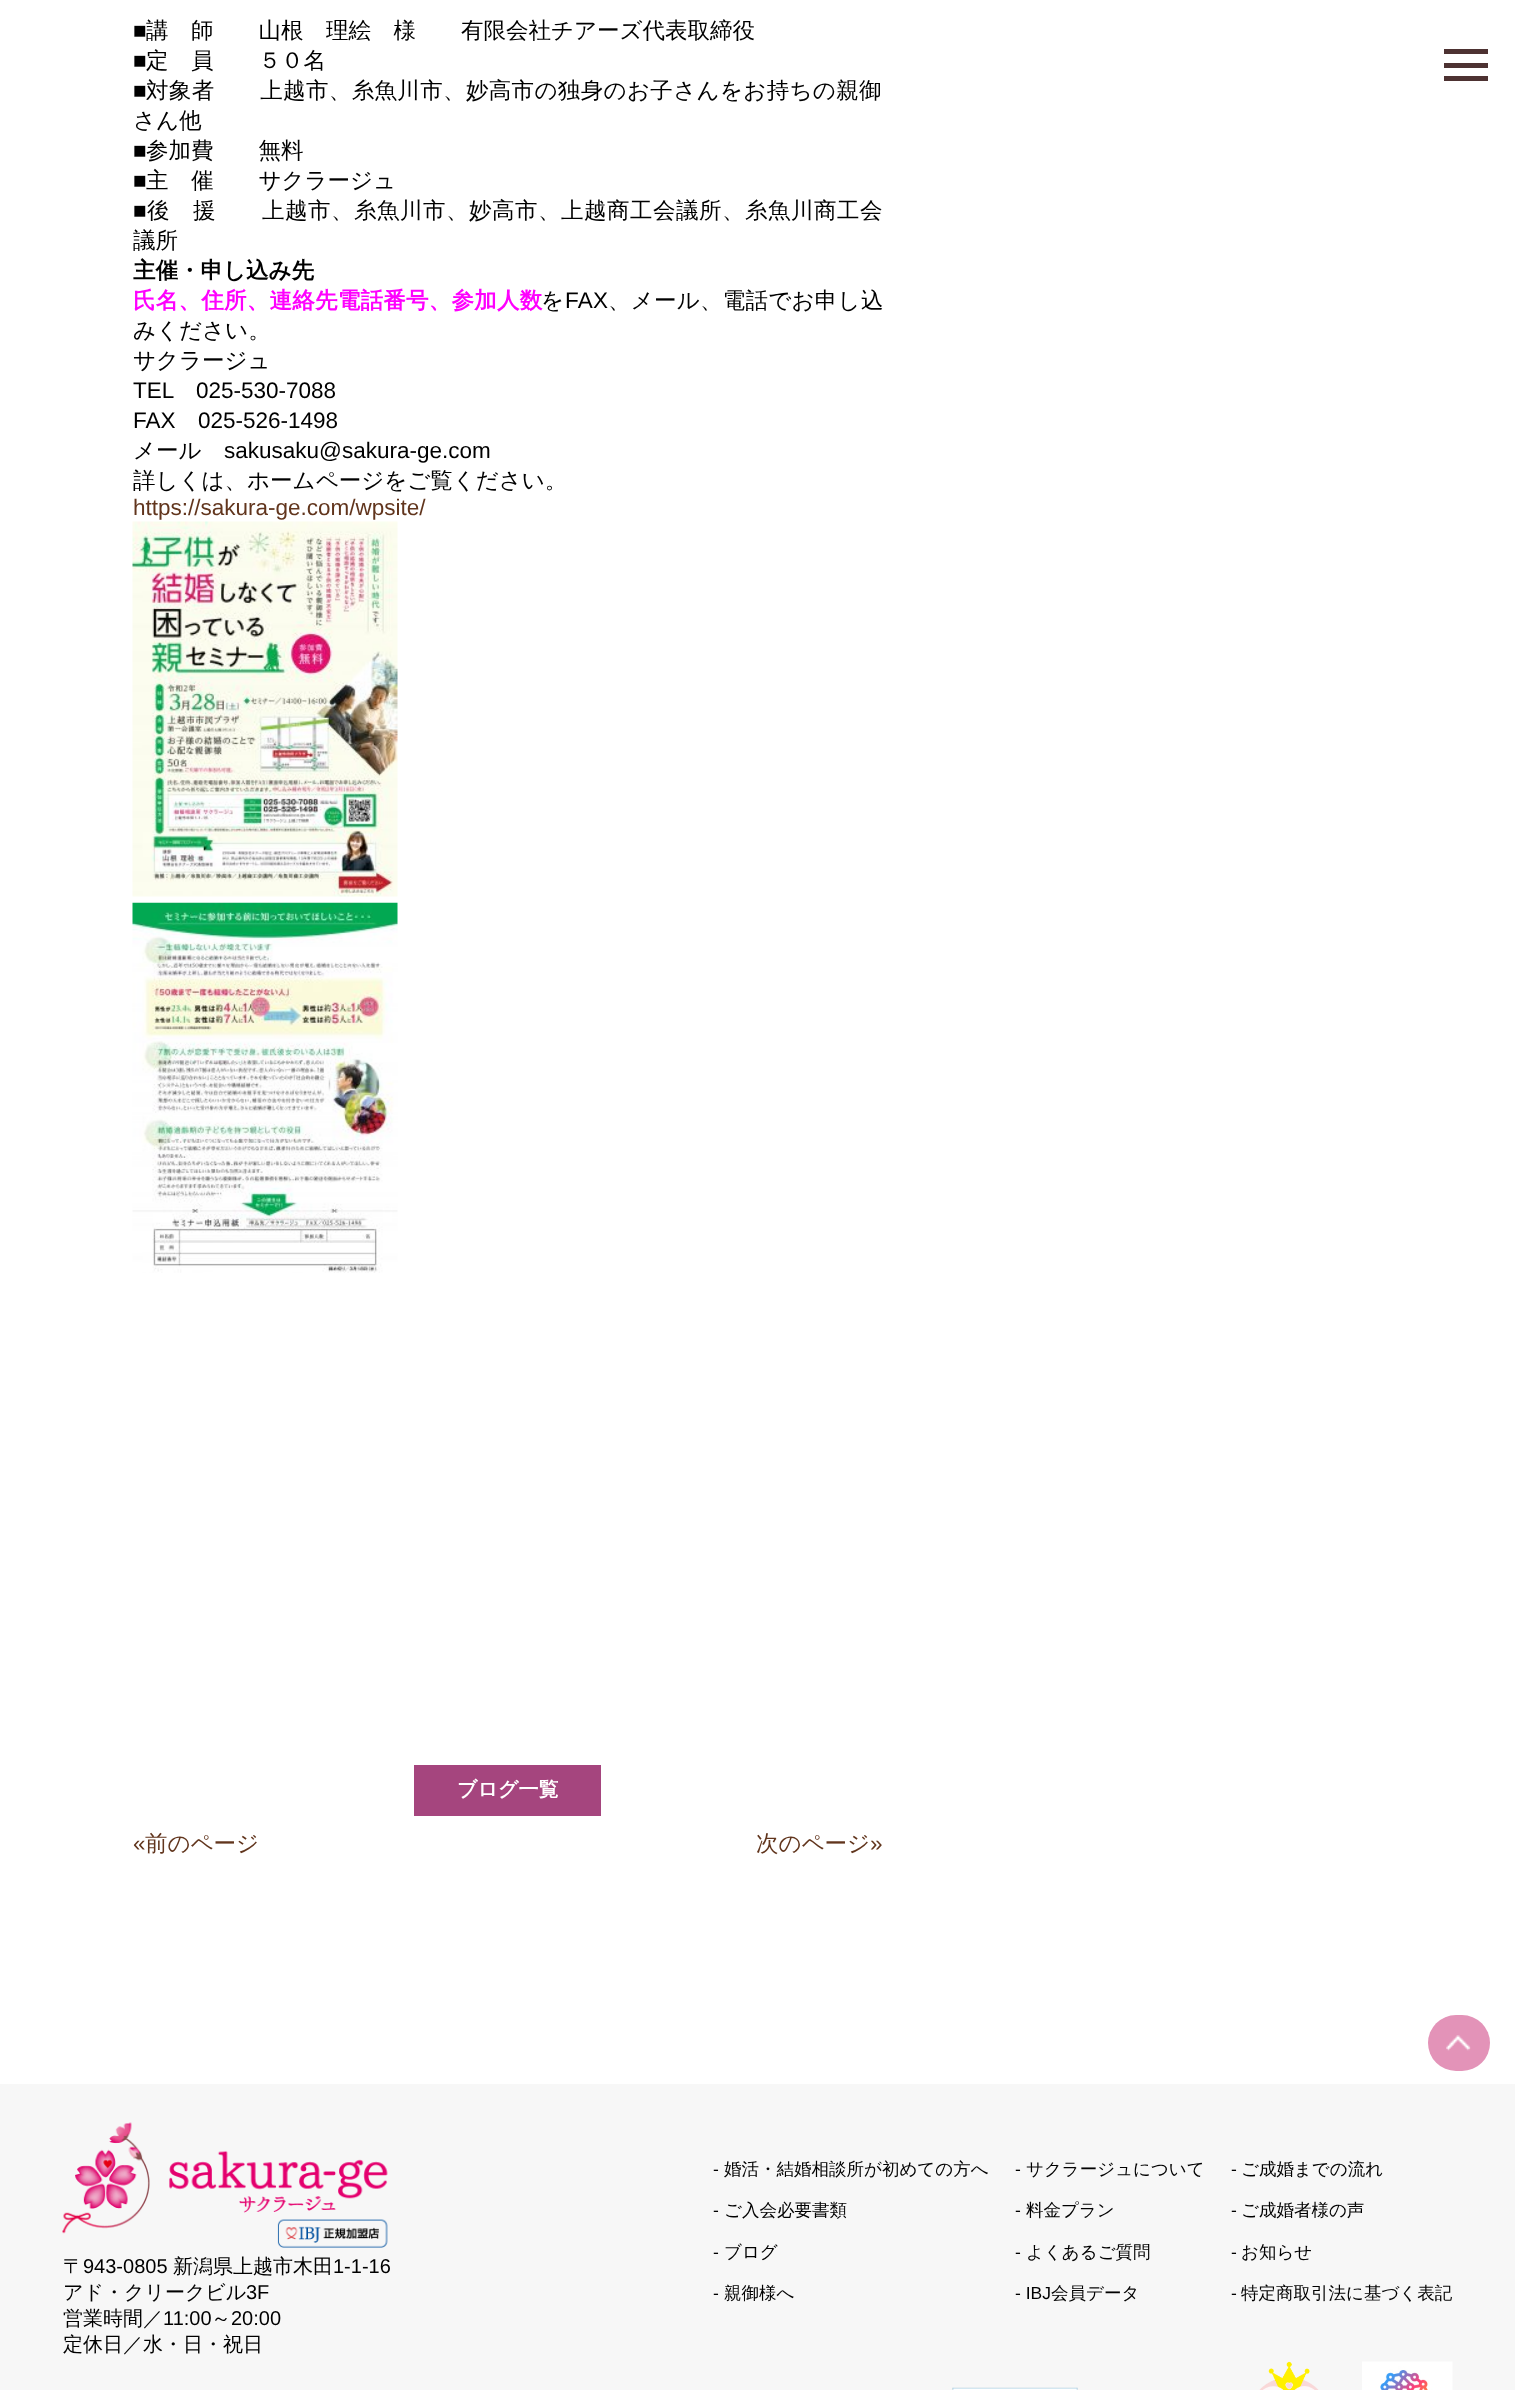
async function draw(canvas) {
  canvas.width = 1515;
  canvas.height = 2390;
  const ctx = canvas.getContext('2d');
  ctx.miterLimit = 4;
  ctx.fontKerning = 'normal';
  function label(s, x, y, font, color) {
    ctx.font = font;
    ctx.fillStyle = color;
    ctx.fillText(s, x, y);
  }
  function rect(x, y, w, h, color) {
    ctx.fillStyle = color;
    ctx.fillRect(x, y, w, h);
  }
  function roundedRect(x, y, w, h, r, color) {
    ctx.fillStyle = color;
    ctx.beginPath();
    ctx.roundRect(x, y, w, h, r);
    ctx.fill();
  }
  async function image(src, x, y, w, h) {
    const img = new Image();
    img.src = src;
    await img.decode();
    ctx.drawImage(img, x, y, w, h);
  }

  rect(0, 0, 1515, 2390, '#fff');
  label('■', 133, 38, '22.5px Liberation Sans', '#000');
  label('講　師　　山根　理絵　様　　有限会社チアーズ代表取締役', 146, 38, '500 22.5px WenQuanYi Zen Hei', '#000');
  label('■', 133, 68, '22.5px Liberation Sans', '#000');
  label('定　員　　５０名', 146, 68, '500 22.5px WenQuanYi Zen Hei', '#000');
  ctx.letterSpacing = '0.35px';
  label('■', 133, 98, '22.5px Liberation Sans', '#000');
  label('対象者　　上越市、糸魚川市、妙高市の独身のお子さんをお持ちの親御', 146, 98, '500 22.5px WenQuanYi Zen Hei', '#000');
  ctx.letterSpacing = '0px';
  label('さん他', 133, 128, '500 22.5px WenQuanYi Zen Hei', '#000');
  label('■', 133, 158, '22.5px Liberation Sans', '#000');
  label('参加費　　無料', 146, 158, '500 22.5px WenQuanYi Zen Hei', '#000');
  label('■', 133, 188, '22.5px Liberation Sans', '#000');
  label('主　催　　サクラージュ', 146, 188, '500 22.5px WenQuanYi Zen Hei', '#000');
  ctx.letterSpacing = '0.5px';
  label('■', 133, 218, '22.5px Liberation Sans', '#000');
  label('後　援　　上越市、糸魚川市、妙高市、上越商工会議所、糸魚川商工会', 147, 218, '500 22.5px WenQuanYi Zen Hei', '#000');
  ctx.letterSpacing = '0px';
  label('議所', 133, 248, '500 22.5px WenQuanYi Zen Hei', '#000');
  label('主催・申し込み先', 133, 278, 'bold 22.5px WenQuanYi Zen Hei', '#000');
  ctx.letterSpacing = '0.25px';
  label('氏名、住所、連絡先電話番号、参加人数', 133, 308, 'bold 22.5px WenQuanYi Zen Hei', '#f0f');
  label('を', 541, 308, '500 22.5px WenQuanYi Zen Hei', '#000');
  label('FAX', 565, 308, '22.5px Liberation Sans', '#000');
  label('、メール、電話でお申し込', 608, 308, '500 22.5px WenQuanYi Zen Hei', '#000');
  ctx.letterSpacing = '0px';
  label('みください。', 133, 338, '500 22.5px WenQuanYi Zen Hei', '#000');
  label('サクラージュ', 133, 368, '500 22.5px WenQuanYi Zen Hei', '#000');
  label('TEL', 133, 398, '22.5px Liberation Sans', '#000');
  label('025-530-7088', 196, 398, '22.5px Liberation Sans', '#000');
  label('FAX', 133, 428, '22.5px Liberation Sans', '#000');
  label('025-526-1498', 198, 428, '22.5px Liberation Sans', '#000');
  label('メール', 133, 458, '500 22.5px WenQuanYi Zen Hei', '#000');
  label('sakusaku@sakura-ge.com', 224, 458, '22.5px Liberation Sans', '#000');
  label('詳しくは、ホームページをご覧ください。', 133, 488, '500 22.5px WenQuanYi Zen Hei', '#000');
  label('https://sakura-ge.com/wpsite/', 133, 515, '22.5px Liberation Sans', '#61351d');
  await image('assets/img1.png', 132, 521, 266, 376);
  await image('assets/img2.png', 132, 902, 266, 371);
  rect(414, 1765, 187, 51, '#a5457e');
  label('ブログ一覧', 457, 1796, 'bold 20px WenQuanYi Zen Hei', '#fff');
  label('«', 133, 1851, '22.5px Liberation Sans', '#61351d');
  label('前のページ', 145, 1851, '500 22.5px WenQuanYi Zen Hei', '#61351d');
  label('次のページ', 756, 1851, '500 22.5px WenQuanYi Zen Hei', '#61351d');
  label('»', 870, 1851, '22.5px Liberation Sans', '#61351d');
  rect(1444, 49, 44, 5, '#4d3232');
  rect(1444, 63, 44, 5, '#4d3232');
  rect(1444, 76, 44, 5, '#4d3232');
  roundedRect(1428, 2015, 62, 56, 28, '#e393b8');
  await image('assets/img3.png', 1446, 2035, 25, 16);
  rect(0, 2084, 1515, 306, '#f7f7f7');
  await image('assets/img4.png', 62, 2122, 326, 126);
  label('〒', 63, 2273, '500 20px WenQuanYi Zen Hei', '#000');
  label('943-0805', 83, 2273, '20px Liberation Sans', '#000');
  label('新潟県上越市木田', 173, 2273, '500 20px WenQuanYi Zen Hei', '#000');
  label('1-1-16', 333, 2273, '20px Liberation Sans', '#000');
  label('アド・クリークビル', 63, 2299, '500 20px WenQuanYi Zen Hei', '#000');
  label('3F', 246, 2299, '20px Liberation Sans', '#000');
  label('営業時間／', 63, 2325, '500 20px WenQuanYi Zen Hei', '#000');
  label('11:00', 163, 2325, '20px Liberation Sans', '#000');
  label('～', 211, 2325, '500 20px WenQuanYi Zen Hei', '#000');
  label('20:00', 231, 2325, '20px Liberation Sans', '#000');
  label('定休日／水・日・祝日', 63, 2351, '500 20px WenQuanYi Zen Hei', '#000');
  label('-', 713, 2175, '17.5px Liberation Sans', '#000');
  label('婚活・結婚相談所が初めての方へ', 724, 2175, '500 17.5px WenQuanYi Zen Hei', '#000');
  label('-', 1015, 2175, '17.5px Liberation Sans', '#000');
  label('サクラージュについて', 1026, 2175, '500 17.5px WenQuanYi Zen Hei', '#000');
  label('-', 1231, 2175, '17.5px Liberation Sans', '#000');
  label('ご成婚までの流れ', 1241, 2175, '500 17.5px WenQuanYi Zen Hei', '#000');
  label('-', 713, 2216, '17.5px Liberation Sans', '#000');
  label('ご入会必要書類', 724, 2216, '500 17.5px WenQuanYi Zen Hei', '#000');
  label('-', 1015, 2216, '17.5px Liberation Sans', '#000');
  label('料金プラン', 1026, 2216, '500 17.5px WenQuanYi Zen Hei', '#000');
  label('-', 1231, 2216, '17.5px Liberation Sans', '#000');
  label('ご成婚者様の声', 1241, 2216, '500 17.5px WenQuanYi Zen Hei', '#000');
  label('-', 713, 2258, '17.5px Liberation Sans', '#000');
  label('ブログ', 724, 2258, '500 17.5px WenQuanYi Zen Hei', '#000');
  label('-', 1015, 2258, '17.5px Liberation Sans', '#000');
  label('よくあるご質問', 1026, 2258, '500 17.5px WenQuanYi Zen Hei', '#000');
  label('-', 1231, 2258, '17.5px Liberation Sans', '#000');
  label('お知らせ', 1241, 2258, '500 17.5px WenQuanYi Zen Hei', '#000');
  label('-', 713, 2299, '17.5px Liberation Sans', '#000');
  label('親御様へ', 724, 2299, '500 17.5px WenQuanYi Zen Hei', '#000');
  label('- IBJ', 1015, 2299, '17.5px Liberation Sans', '#000');
  label('会員データ', 1051, 2299, '500 17.5px WenQuanYi Zen Hei', '#000');
  label('-', 1231, 2299, '17.5px Liberation Sans', '#000');
  label('特定商取引法に基づく表記', 1241, 2299, '500 17.5px WenQuanYi Zen Hei', '#000');
  await image('assets/img5.png', 952, 2387, 126, 3);
  await image('assets/img6.png', 1259, 2361, 60, 29);
  await image('assets/img7.png', 1362, 2361, 91, 29);
}

draw(document.querySelector('canvas'));
